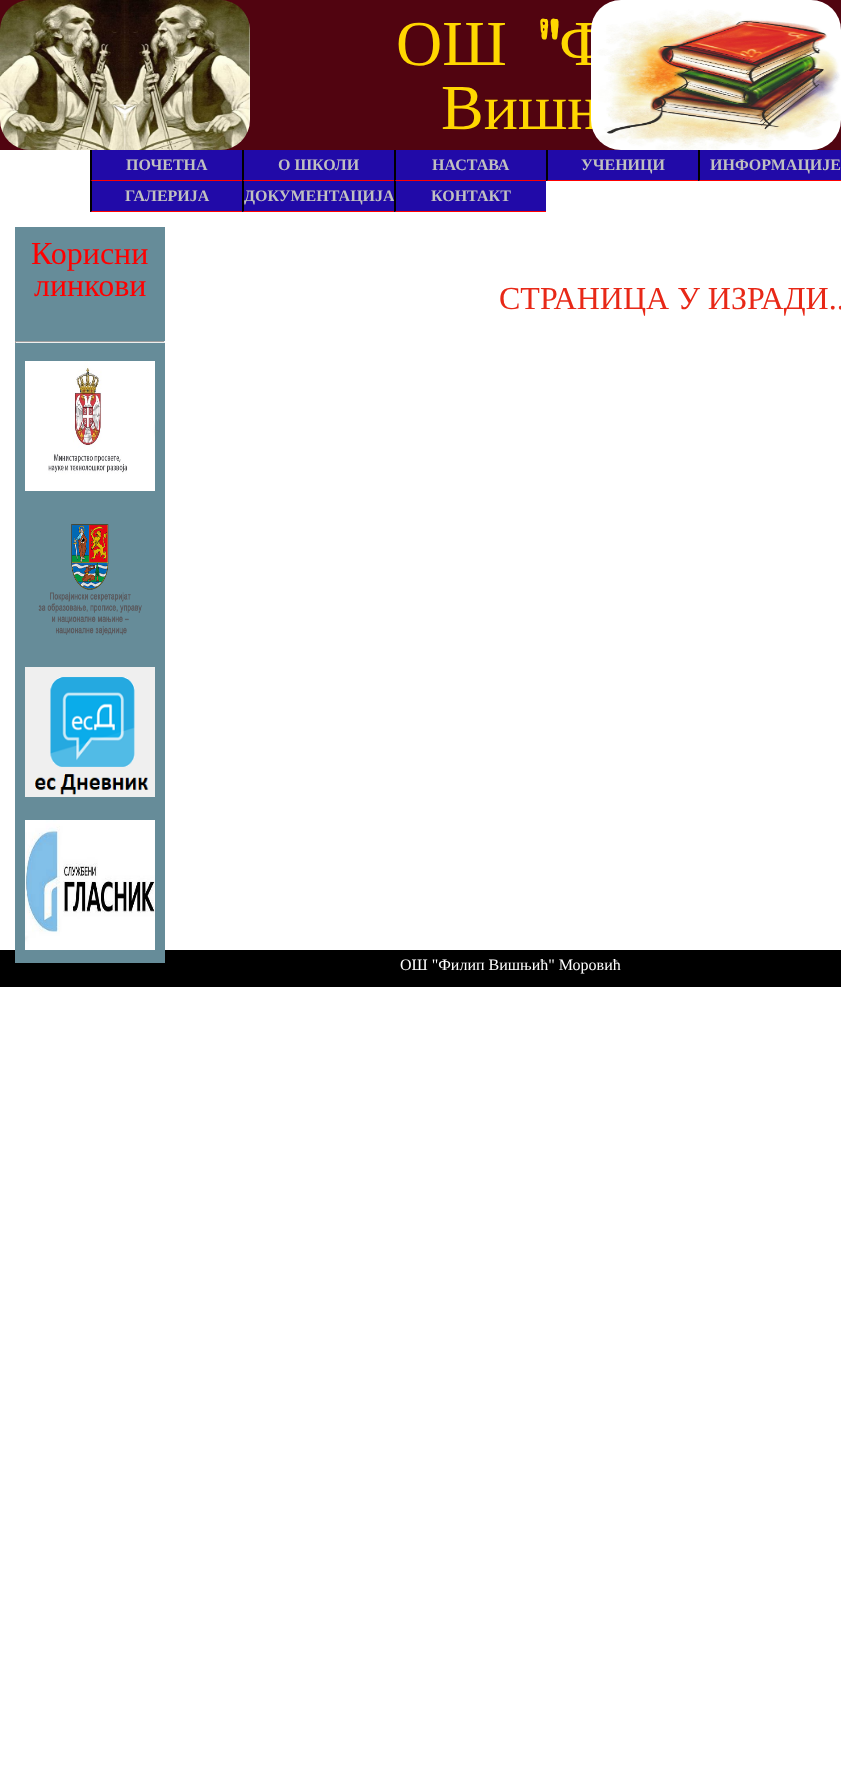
async function draw(canvas) {
  canvas.width = 841;
  canvas.height = 1768;
  const ctx = canvas.getContext('2d');
  ctx.miterLimit = 4;
  ctx.fontKerning = 'normal';
  function label(s, x, y, font, color) {
    ctx.font = font;
    ctx.fillStyle = color;
    ctx.fillText(s, x, y);
  }
  function rect(x, y, w, h, color) {
    ctx.fillStyle = color;
    ctx.fillRect(x, y, w, h);
  }
  async function image(src, x, y, w, h) {
    const img = new Image();
    img.src = src;
    await img.decode();
    ctx.drawImage(img, x, y, w, h);
  }
  let path;

  rect(0, 0, 841, 1768, '#fff');
  rect(0, 0, 841, 150, '#510410');
  await image('assets/img1.png', 0, 0, 250, 150);
  label('ОШ', 396, 65, '64px Liberation Serif', '#ffd700');
  label('"', 539, 65, '64px Frijole', '#ffd700');
  label('Ф', 559, 65, '64px Liberation Serif', '#ffd700');
  label('Вишњ', 441, 129, '64px Liberation Serif', '#ffd700');
  await image('assets/img2.png', 591, 0, 250, 150);
  rect(90, 150, 751, 31, '#210aa8');
  ctx.fillStyle = '#f00';
  path = new Path2D('M242 181H90L92 180H242Z');
  ctx.fill(path);
  ctx.fillStyle = '#000';
  path = new Path2D('M90 181V150H92V180Z');
  ctx.fill(path);
  label('ПОЧЕТНА', 126, 170, 'bold 16px Liberation Serif', '#c0c0c0');
  ctx.fillStyle = '#f00';
  path = new Path2D('M394 181H242L244 180H394Z');
  ctx.fill(path);
  ctx.fillStyle = '#000';
  path = new Path2D('M242 181V150H244V180Z');
  ctx.fill(path);
  label('О ШКОЛИ', 278, 170, 'bold 16px Liberation Serif', '#c0c0c0');
  ctx.fillStyle = '#f00';
  path = new Path2D('M546 181H394L396 180H546Z');
  ctx.fill(path);
  ctx.fillStyle = '#000';
  path = new Path2D('M394 181V150H396V180Z');
  ctx.fill(path);
  label('НАСТАВА', 432, 170, 'bold 16px Liberation Serif', '#c0c0c0');
  ctx.fillStyle = '#f00';
  path = new Path2D('M698 181H546L548 180H698Z');
  ctx.fill(path);
  ctx.fillStyle = '#000';
  path = new Path2D('M546 181V150H548V180Z');
  ctx.fill(path);
  label('УЧЕНИЦИ', 581, 170, 'bold 16px Liberation Serif', '#c0c0c0');
  ctx.fillStyle = '#f00';
  path = new Path2D('M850 181H698L700 180H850Z');
  ctx.fill(path);
  ctx.fillStyle = '#000';
  path = new Path2D('M698 181V150H700V180Z');
  ctx.fill(path);
  label('ИНФОРМАЦИЈЕ', 710, 170, 'bold 16px Liberation Serif', '#c0c0c0');
  rect(90, 181, 304, 31, '#210aa8');
  ctx.fillStyle = '#f00';
  path = new Path2D('M242 212H90L92 211H242Z');
  ctx.fill(path);
  ctx.fillStyle = '#000';
  path = new Path2D('M90 212V181H92V211Z');
  ctx.fill(path);
  label('ГАЛЕРИЈА', 125, 201, 'bold 16px Liberation Serif', '#c0c0c0');
  ctx.fillStyle = '#f00';
  path = new Path2D('M394 212H242L244 211H394Z');
  ctx.fill(path);
  ctx.fillStyle = '#000';
  path = new Path2D('M242 212V181H244V211Z');
  ctx.fill(path);
  label('ДОКУМЕНТАЦИЈА', 244, 201, 'bold 16px Liberation Serif', '#c0c0c0');
  rect(394, 181, 152, 31, '#210aa8');
  ctx.fillStyle = '#f00';
  path = new Path2D('M546 212H394L396 211H546Z');
  ctx.fill(path);
  ctx.fillStyle = '#000';
  path = new Path2D('M394 212V181H396V211Z');
  ctx.fill(path);
  label('КОНТАКТ', 431, 201, 'bold 16px Liberation Serif', '#c0c0c0');
  rect(0, 950, 841, 37, '#000');
  rect(15, 227, 150, 736, '#668c99');
  label('Корисни', 31, 264, '32px Liberation Serif', '#f00');
  label('линкови', 34, 296, '32px Liberation Serif', '#f00');
  rect(15, 341, 150, 1, '#9f9f9f');
  rect(164, 341, 1, 2, '#eee');
  rect(15, 342, 150, 1, '#eee');
  rect(15, 341, 1, 2, '#9f9f9f');
  await image('assets/img3.png', 25, 361, 130, 130);
  await image('assets/img4.png', 38, 524, 104, 112);
  await image('assets/img5.png', 25, 667, 130, 130);
  await image('assets/img6.png', 25, 820, 130, 130);
  label('СТРАНИЦА У ИЗРАДИ..', 499, 309, '32px Liberation Serif', '#e82817');
  label('ОШ "Филип Вишњић" Моровић', 400, 970, '16px Liberation Serif', '#fff');
}

draw(document.querySelector('canvas'));
